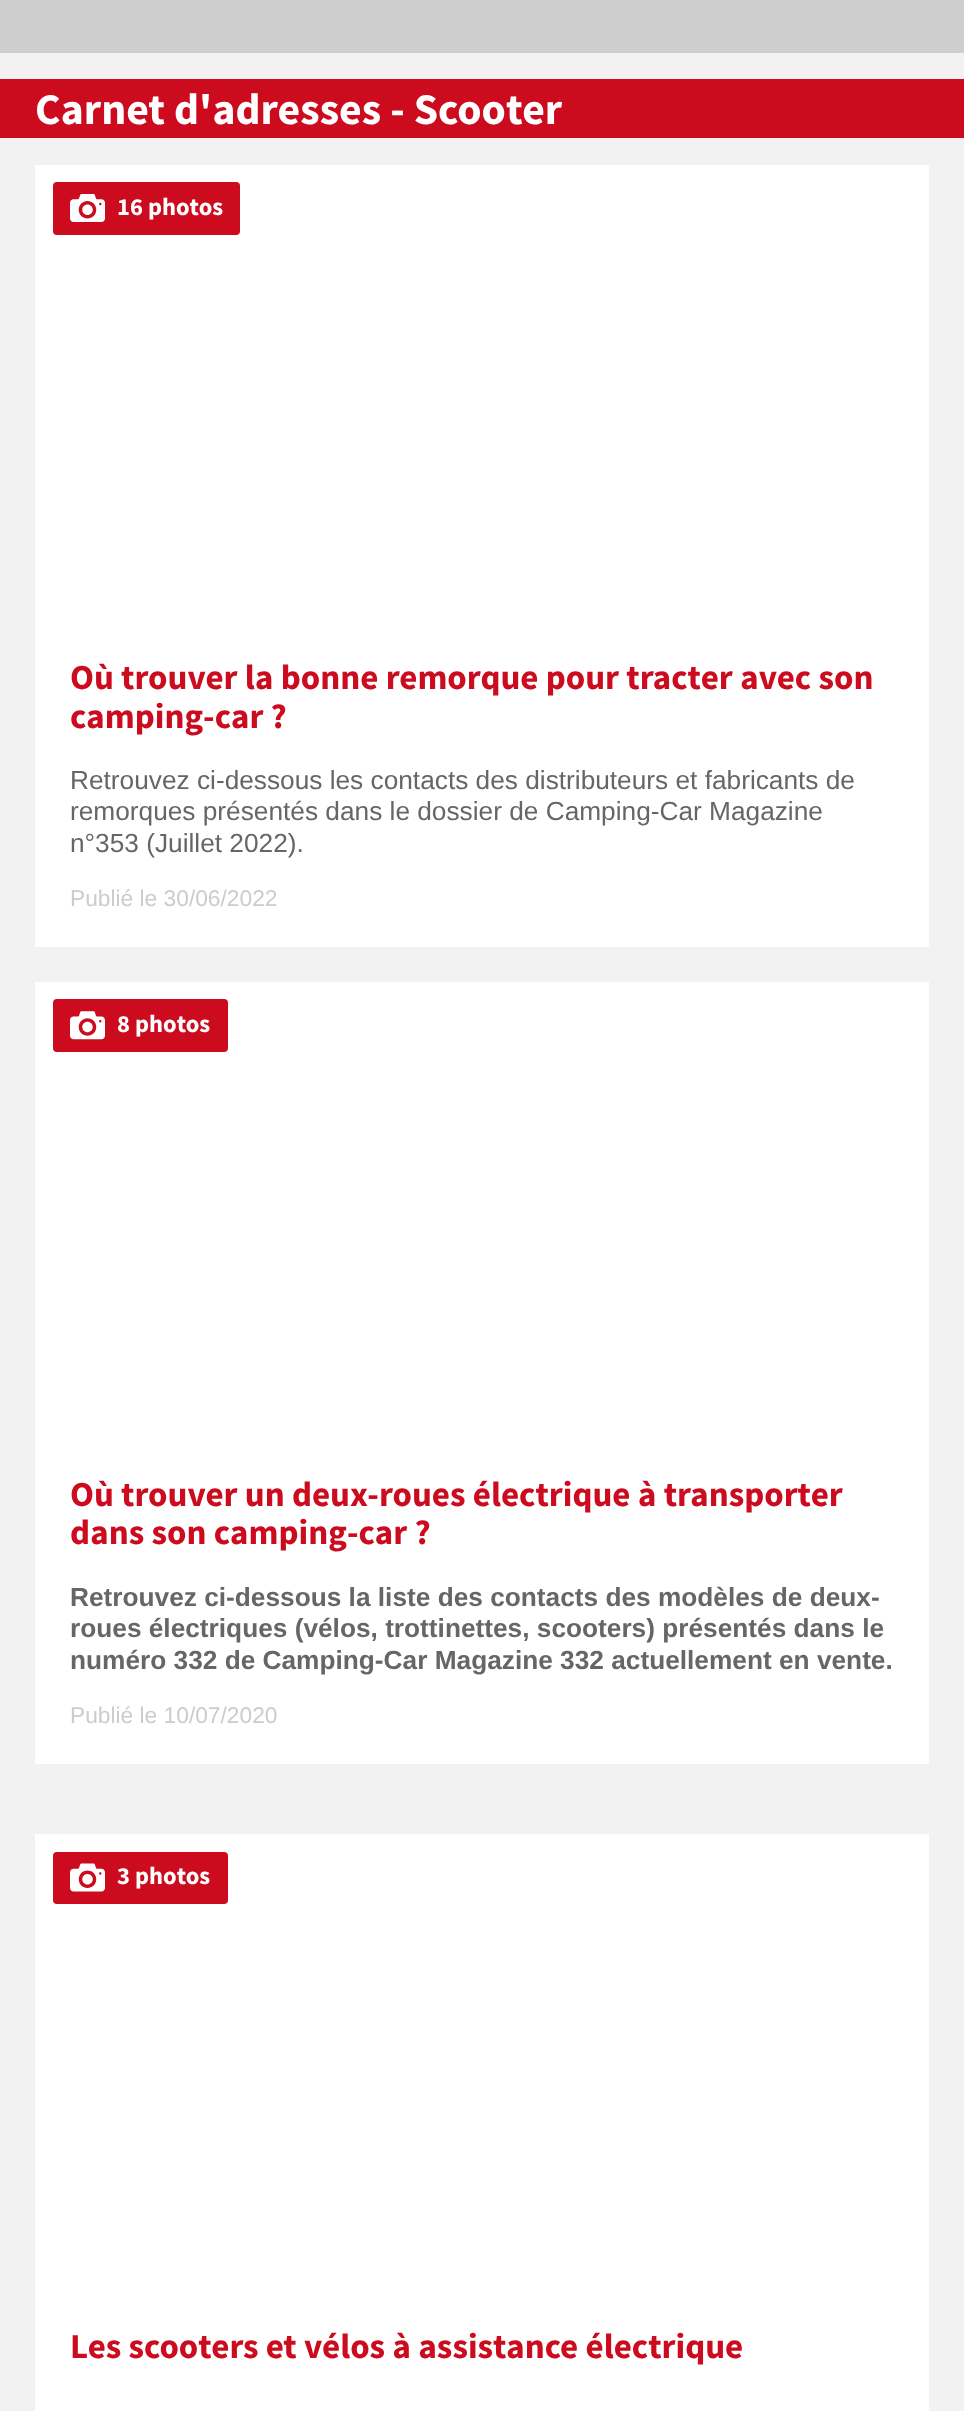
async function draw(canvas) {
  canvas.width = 964;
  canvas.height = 2411;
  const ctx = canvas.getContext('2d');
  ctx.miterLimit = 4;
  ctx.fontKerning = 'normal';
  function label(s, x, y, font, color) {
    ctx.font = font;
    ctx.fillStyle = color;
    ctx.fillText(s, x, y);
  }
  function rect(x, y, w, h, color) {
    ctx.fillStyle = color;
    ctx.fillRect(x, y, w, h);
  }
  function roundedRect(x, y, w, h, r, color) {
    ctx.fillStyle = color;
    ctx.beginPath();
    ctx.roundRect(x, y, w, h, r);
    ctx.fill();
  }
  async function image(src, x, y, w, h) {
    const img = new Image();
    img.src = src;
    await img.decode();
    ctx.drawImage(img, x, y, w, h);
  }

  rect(0, 0, 964, 2411, '#f2f2f2');
  rect(0, 0, 964, 53, '#cecece');
  rect(0, 79, 964, 59, '#cc0b1e');
  label('Carnet d\'adresses - Scooter', 35, 124, 'bold 43.75px Source Sans Pro', '#fff');
  rect(35, 165, 894, 782, '#fff');
  roundedRect(53, 182, 187, 53, 4, '#cc0b1e');
  await image('assets/img1.png', 70, 194, 35, 28);
  label('16 photos', 117, 215, 'bold 24.5px Source Sans Pro', '#fff');
  label('Où trouver la bonne remorque pour tracter avec son', 70, 689, 'bold 35px Source Sans Pro', '#cc0b1e');
  label('camping-car ?', 70, 728, 'bold 35px Source Sans Pro', '#cc0b1e');
  label('Retrouvez ci-dessous les contacts des distributeurs et fabricants de', 70, 789, '26.25px Liberation Sans', '#666');
  label('remorques présentés dans le dossier de Camping-Car Magazine', 70, 820, '26.25px Liberation Sans', '#666');
  label('n°353 (Juillet 2022).', 70, 852, '26.25px Liberation Sans', '#666');
  label('Publié le 30/06/2022', 70, 906, '22.75px Liberation Sans', '#ccc');
  rect(35, 982, 894, 782, '#fff');
  roundedRect(53, 999, 175, 53, 4, '#cc0b1e');
  await image('assets/img2.png', 70, 1011, 35, 29);
  label('8 photos', 117, 1032, 'bold 24.5px Source Sans Pro', '#fff');
  label('Où trouver un deux-roues électrique à transporter', 70, 1506, 'bold 35px Source Sans Pro', '#cc0b1e');
  label('dans son camping-car ?', 70, 1544, 'bold 35px Source Sans Pro', '#cc0b1e');
  label('Retrouvez ci-dessous la liste des contacts des modèles de deux-', 70, 1606, 'bold 26.25px Liberation Sans', '#666');
  label('roues électriques (vélos, trottinettes, scooters) présentés dans le', 70, 1637, 'bold 26.25px Liberation Sans', '#666');
  label('numéro 332 de Camping-Car Magazine 332 actuellement en vente.', 70, 1669, 'bold 26.25px Liberation Sans', '#666');
  label('Publié le 10/07/2020', 70, 1723, '22.75px Liberation Sans', '#ccc');
  rect(35, 1834, 894, 577, '#fff');
  roundedRect(53, 1852, 175, 52, 4, '#cc0b1e');
  await image('assets/img3.png', 70, 1863, 35, 29);
  label('3 photos', 117, 1884, 'bold 24.5px Source Sans Pro', '#fff');
  label('Les scooters et vélos à assistance électrique', 70, 2358, 'bold 35px Source Sans Pro', '#cc0b1e');
}

draw(document.querySelector('canvas'));
